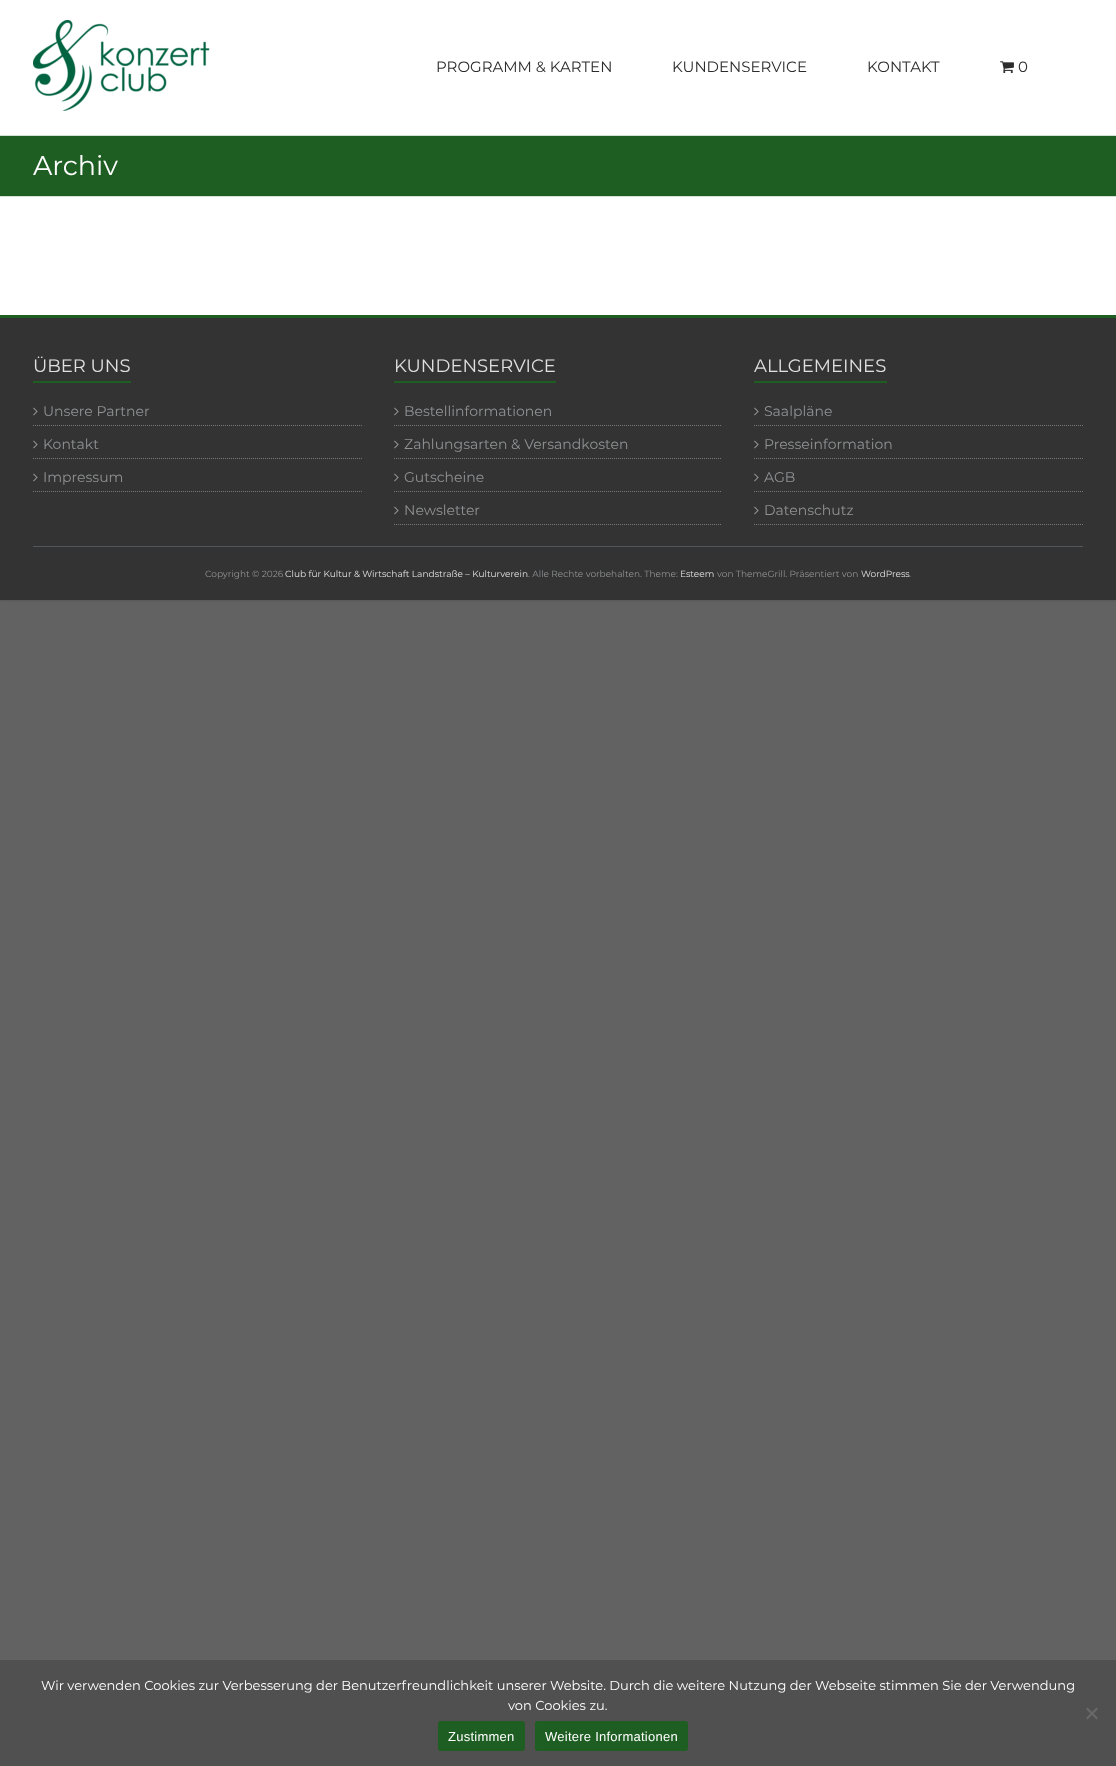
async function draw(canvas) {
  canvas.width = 1116;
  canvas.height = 1766;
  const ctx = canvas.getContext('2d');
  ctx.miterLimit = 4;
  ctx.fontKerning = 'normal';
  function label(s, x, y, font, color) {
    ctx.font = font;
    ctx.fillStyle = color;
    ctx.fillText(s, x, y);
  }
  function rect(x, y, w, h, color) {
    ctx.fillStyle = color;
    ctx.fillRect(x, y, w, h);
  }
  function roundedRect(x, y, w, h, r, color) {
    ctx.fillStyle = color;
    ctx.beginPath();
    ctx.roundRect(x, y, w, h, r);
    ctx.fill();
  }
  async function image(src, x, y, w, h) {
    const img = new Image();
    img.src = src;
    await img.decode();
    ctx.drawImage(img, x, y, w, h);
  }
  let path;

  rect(0, 0, 1116, 1766, '#626262');
  ctx.fillStyle = '#00000033';
  ctx.filter = 'blur(1.5px)';
  ctx.beginPath();
  ctx.rect(0, 0, 1116, 600);
  ctx.fill();
  ctx.filter = 'none';
  rect(0, 0, 1116, 315, '#fff');
  await image('assets/img1.png', 33, 20, 177, 91);
  label('PROGRAMM & KARTEN', 436, 72, '15px Montserrat', '#2c2c2c');
  label('KUNDENSERVICE', 672, 72, '15px Montserrat', '#2c2c2c');
  label('KONTAKT', 867, 72, '15px Montserrat', '#2c2c2c');
  await image('assets/img2.png', 1000, 61, 14, 13);
  label('0', 1018, 72, '15px Montserrat', '#2c2c2c');
  rect(0, 136, 1116, 60, '#1e5e23');
  rect(0, 135, 1116, 1, '#d2dfd3');
  rect(0, 196, 1116, 1, '#d2dfd3');
  label('Archiv', 33, 175, '27px Montserrat', '#fff');
  rect(0, 318, 1116, 282, '#333');
  rect(0, 315, 1116, 3, '#1e5e23');
  label('ÜBER UNS', 33, 372, '18px Montserrat', '#e0e0e0');
  rect(33, 381, 98, 2, '#1e5e23');
  path = new Path2D('M33 425.5H362');
  ctx.strokeStyle = '#777';
  ctx.setLineDash([1, 1]);
  ctx.stroke(path);
  await image('assets/img3.png', 33, 407, 5, 9);
  label('Unsere Partner', 43, 416, '14px Montserrat', '#909294');
  path = new Path2D('M33 458.5H362');
  ctx.stroke(path);
  await image('assets/img3.png', 33, 440, 5, 9);
  label('Kontakt', 43, 449, '14px Montserrat', '#909294');
  path = new Path2D('M33 491.5H362');
  ctx.stroke(path);
  await image('assets/img3.png', 33, 473, 5, 9);
  label('Impressum', 43, 482, '14px Montserrat', '#909294');
  label('KUNDENSERVICE', 394, 372, '18px Montserrat', '#e0e0e0');
  rect(394, 381, 162, 2, '#1e5e23');
  path = new Path2D('M394 425.5H722');
  ctx.stroke(path);
  await image('assets/img3.png', 394, 407, 5, 9);
  label('Bestellinformationen', 404, 416, '14px Montserrat', '#909294');
  path = new Path2D('M394 458.5H722');
  ctx.stroke(path);
  await image('assets/img3.png', 394, 440, 5, 9);
  label('Zahlungsarten & Versandkosten', 404, 449, '14px Montserrat', '#909294');
  path = new Path2D('M394 491.5H722');
  ctx.stroke(path);
  await image('assets/img3.png', 394, 473, 5, 9);
  label('Gutscheine', 404, 482, '14px Montserrat', '#909294');
  path = new Path2D('M394 524.5H722');
  ctx.stroke(path);
  await image('assets/img3.png', 394, 506, 5, 9);
  label('Newsletter', 404, 515, '14px Montserrat', '#909294');
  label('ALLGEMEINES', 754, 372, '18px Montserrat', '#e0e0e0');
  rect(754, 381, 133, 2, '#1e5e23');
  path = new Path2D('M754 425.5H1083');
  ctx.stroke(path);
  await image('assets/img3.png', 754, 407, 5, 9);
  label('Saalpläne', 764, 416, '14px Montserrat', '#909294');
  path = new Path2D('M754 458.5H1083');
  ctx.stroke(path);
  await image('assets/img3.png', 754, 440, 5, 9);
  label('Presseinformation', 764, 449, '14px Montserrat', '#909294');
  path = new Path2D('M754 491.5H1083');
  ctx.stroke(path);
  await image('assets/img3.png', 754, 473, 5, 9);
  label('AGB', 764, 482, '14px Montserrat', '#909294');
  path = new Path2D('M754 524.5H1083');
  ctx.stroke(path);
  await image('assets/img3.png', 754, 506, 5, 9);
  label('Datenschutz', 764, 515, '14px Montserrat', '#909294');
  rect(33, 546, 1050, 1, '#52585b');
  label('Copyright © 2026', 205, 577, '9px Montserrat', '#909294');
  label('Club für Kultur & Wirtschaft Landstraße – Kulturverein', 285, 577, '9px Montserrat', '#e0e0e0');
  label('. Alle Rechte vorbehalten. Theme:', 528, 577, '9px Montserrat', '#909294');
  label('Esteem', 680, 577, '9px Montserrat', '#e0e0e0');
  label('von ThemeGrill. Präsentiert von', 717, 577, '9px Montserrat', '#909294');
  label('WordPress', 861, 577, '9px Montserrat', '#e0e0e0');
  label('.', 909, 577, '9px Montserrat', '#909294');
  rect(0, 1660, 1116, 106, '#505050');
  label('Wir verwenden Cookies zur Verbesserung der Benutzerfreundlichkeit unserer Website. Durch die weitere Nutzung der Webseite stimmen Sie der Verwendung', 41, 1690, '13px Montserrat', '#fff');
  label('von Cookies zu.', 508, 1710, '13px Montserrat', '#fff');
  ctx.fillStyle = '#686868';
  path = new Path2D('M1096.5 1707.5L1098 1709L1087.5 1719.5L1086 1718Z');
  ctx.fill(path);
  path = new Path2D('M1086 1709L1087.5 1707.5L1098 1718L1096.5 1719.5Z');
  ctx.fill(path);
  roundedRect(438, 1721, 87, 30, 3, '#1e5e23');
  ctx.letterSpacing = '0.25px';
  label('Zustimmen', 448, 1741, '13px Liberation Sans', '#fff');
  roundedRect(535, 1721, 153, 30, 3, '#1e5e23');
  label('Weitere Informationen', 545, 1741, '13px Liberation Sans', '#fff');
}

draw(document.querySelector('canvas'));
